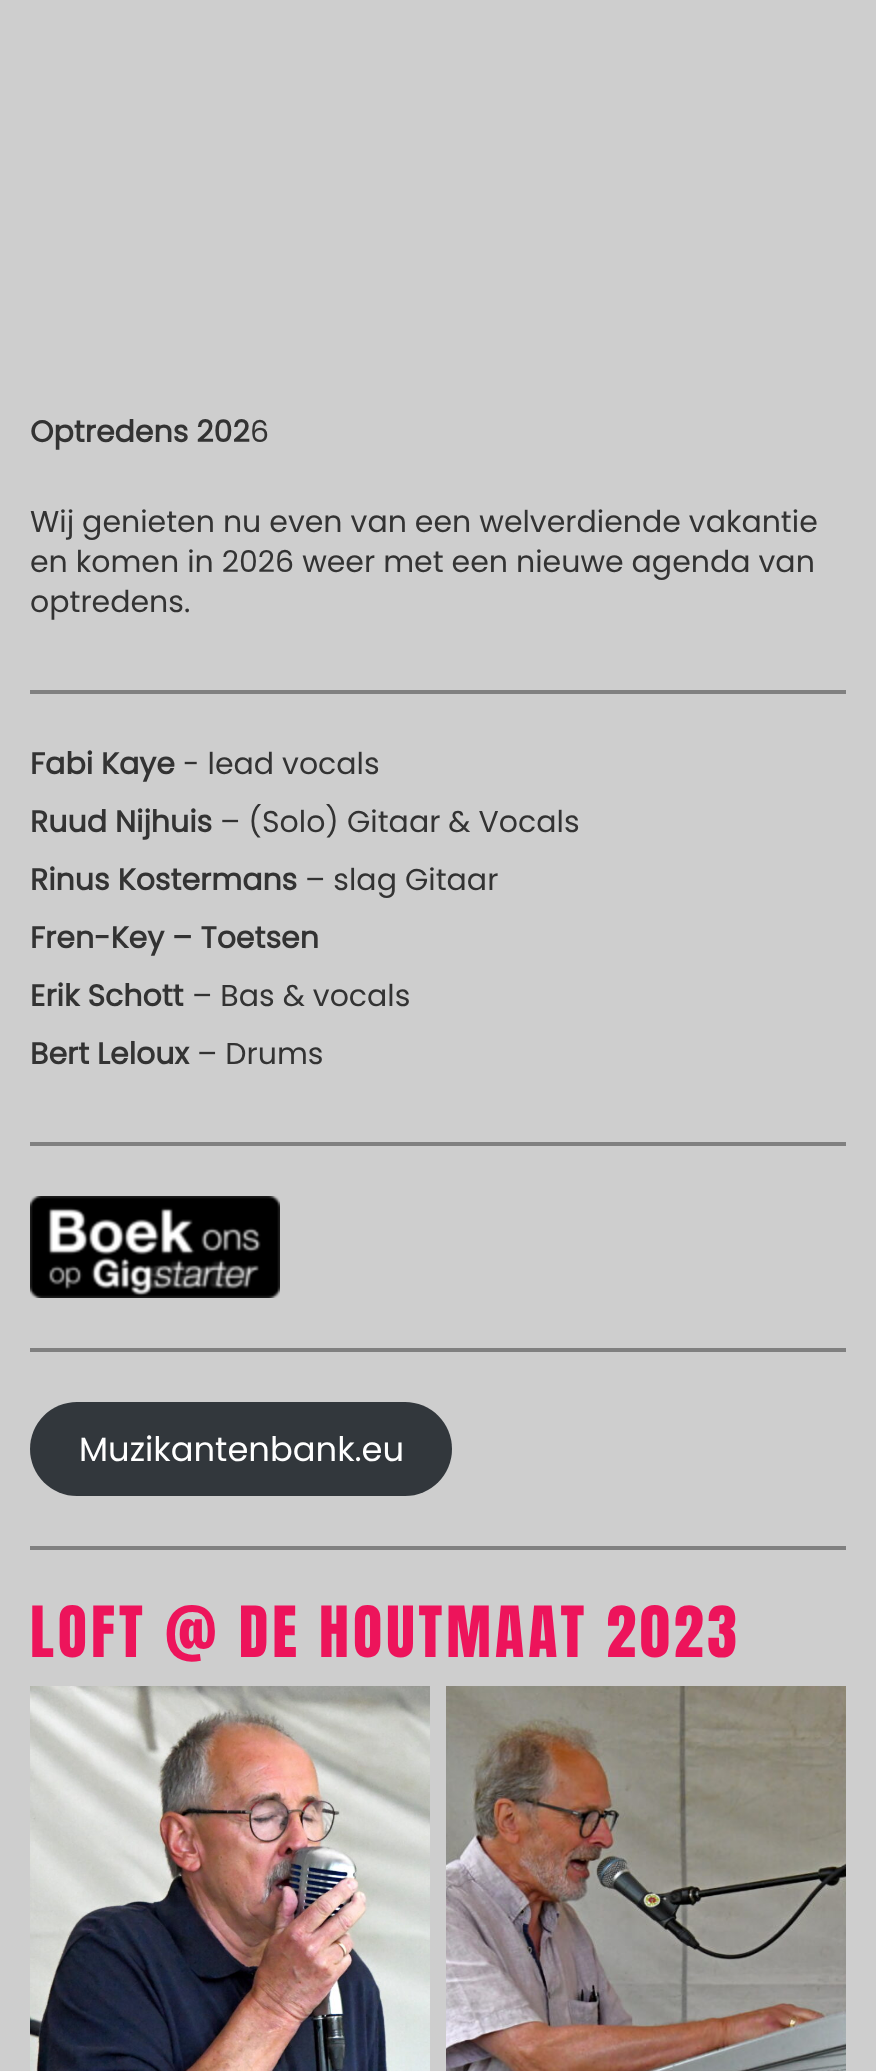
async function draw(canvas) {
  canvas.width = 876;
  canvas.height = 2071;
  const ctx = canvas.getContext('2d');
  ctx.miterLimit = 4;
  ctx.fontKerning = 'normal';
  function label(s, x, y, font, color) {
    ctx.font = font;
    ctx.fillStyle = color;
    ctx.fillText(s, x, y);
  }
  function rect(x, y, w, h, color) {
    ctx.fillStyle = color;
    ctx.fillRect(x, y, w, h);
  }
  function roundedRect(x, y, w, h, r, color) {
    ctx.fillStyle = color;
    ctx.beginPath();
    ctx.roundRect(x, y, w, h, r);
    ctx.fill();
  }
  async function image(src, x, y, w, h) {
    const img = new Image();
    img.src = src;
    await img.decode();
    ctx.drawImage(img, x, y, w, h);
  }

  rect(0, 0, 876, 2071, '#cecece');
  label('Optredens 202', 30, 442, 'bold 30px Poppins', '#333');
  label('6', 250, 442, '30px Poppins', '#333');
  label('Wij genieten nu even van een welverdiende vakantie', 30, 532, '30px Poppins', '#333');
  label('en komen in 2026 weer met een nieuwe agenda van', 30, 572, '30px Poppins', '#333');
  label('optredens.', 30, 612, '30px Poppins', '#333');
  rect(30, 690, 816, 4, '#808080');
  label('Fabi Kaye', 30, 774, 'bold 30px Poppins', '#333');
  label('- lead vocals', 183, 774, '30px Poppins', '#333');
  label('Ruud Nijhuis', 30, 832, 'bold 30px Poppins', '#333');
  label('– (Solo) Gitaar & Vocals', 220, 832, '30px Poppins', '#333');
  label('Rinus Kostermans', 30, 890, 'bold 30px Poppins', '#333');
  label('– slag Gitaar', 305, 890, '30px Poppins', '#333');
  label('Fren-Key – Toetsen', 30, 948, 'bold 30px Poppins', '#333');
  label('Erik Schott', 30, 1006, 'bold 30px Poppins', '#333');
  label('– Bas & vocals', 192, 1006, '30px Poppins', '#333');
  label('Bert Leloux', 30, 1064, 'bold 30px Poppins', '#333');
  label('– Drums', 197, 1064, '30px Poppins', '#333');
  rect(30, 1142, 816, 4, '#808080');
  await image('assets/img1.png', 30, 1196, 250, 102);
  rect(30, 1348, 816, 4, '#808080');
  roundedRect(30, 1402, 422, 94, 47, '#32373c');
  label('Muzikantenbank.eu', 79, 1461, '33.75px Poppins', '#fff');
  rect(30, 1546, 816, 4, '#808080');
  ctx.letterSpacing = '4px';
  label('LOFT @ DE HOUTMAAT 2023', 30, 1657, '60px Anton', '#ed145b');
  await image('assets/img2.png', 30, 1686, 400, 385);
  await image('assets/img3.png', 446, 1686, 400, 385);
}

draw(document.querySelector('canvas'));
